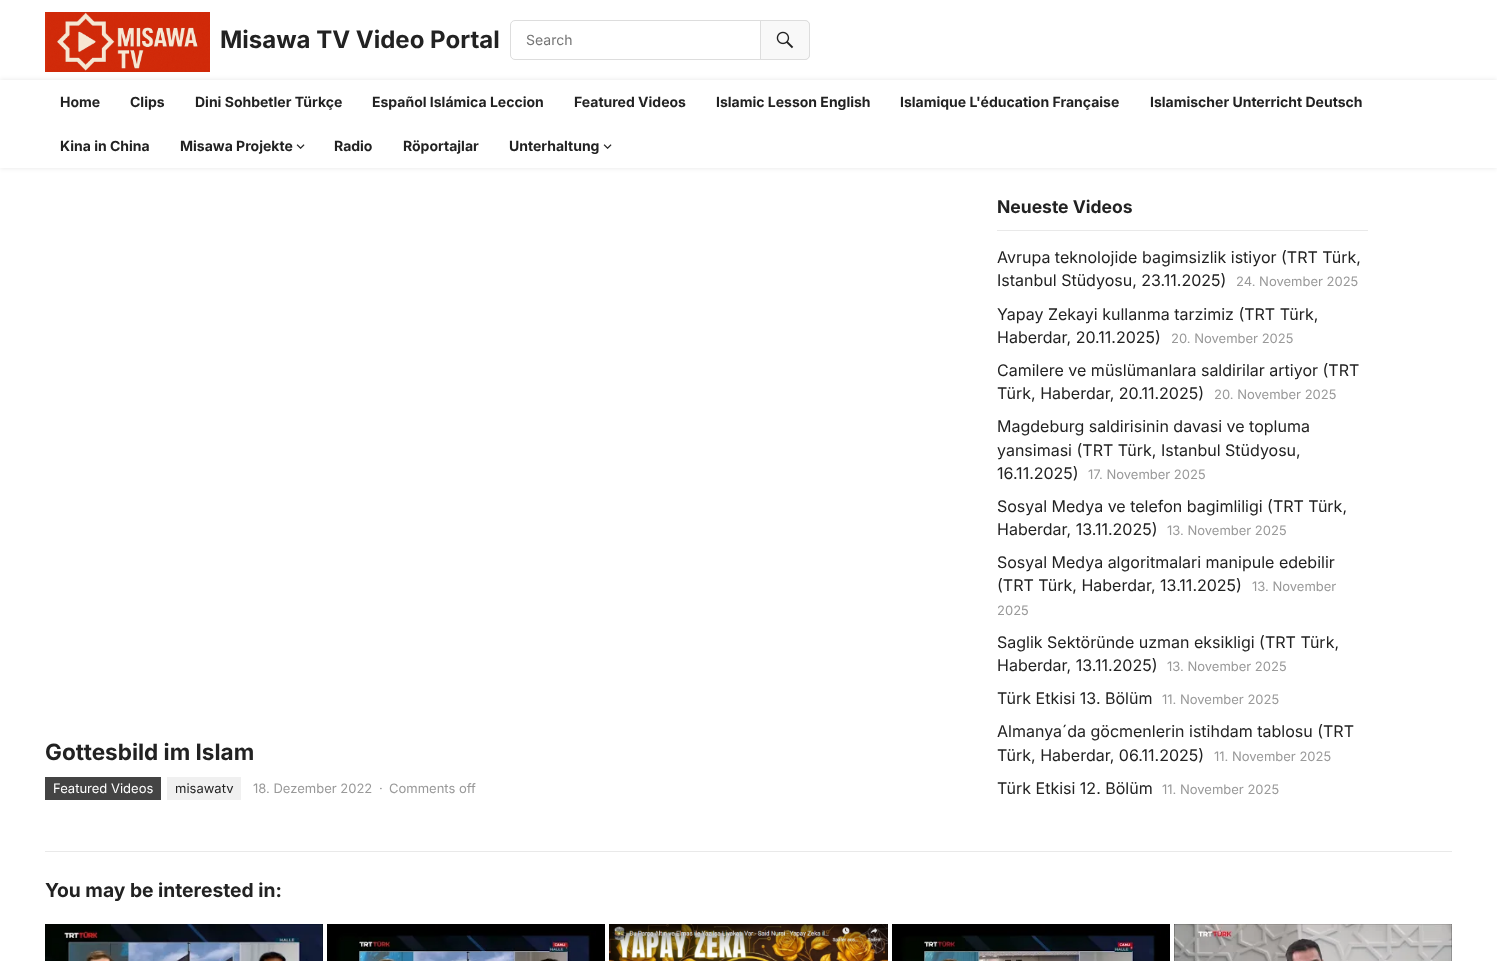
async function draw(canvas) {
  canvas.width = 1497;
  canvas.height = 961;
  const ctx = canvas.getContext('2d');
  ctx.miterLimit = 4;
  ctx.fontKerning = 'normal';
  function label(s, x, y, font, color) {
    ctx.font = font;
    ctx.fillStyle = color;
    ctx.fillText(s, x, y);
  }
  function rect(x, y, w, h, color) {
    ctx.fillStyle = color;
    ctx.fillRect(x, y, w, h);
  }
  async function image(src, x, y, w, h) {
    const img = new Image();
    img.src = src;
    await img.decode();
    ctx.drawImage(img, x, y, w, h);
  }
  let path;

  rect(0, 0, 1497, 961, '#fff');
  ctx.save();
  path = new Path2D('M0 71H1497V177H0ZM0 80H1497V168H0Z');
  ctx.clip(path, 'evenodd');
  ctx.fillStyle = '#0000001a';
  ctx.filter = 'blur(2.5px)';
  ctx.beginPath();
  ctx.rect(0, 80, 1497, 88);
  ctx.fill();
  ctx.filter = 'none';
  ctx.restore();
  await image('assets/img1.png', 45, 12, 165, 60);
  label('Misawa TV Video Portal', 220, 48, 'bold 24px Inter', '#222');
  ctx.beginPath();
  ctx.roundRect(510.5, 20.5, 299, 39, 4.5);
  ctx.strokeStyle = '#ddd';
  ctx.stroke();
  label('Search', 526, 45, '14px Inter', '#757575');
  ctx.fillStyle = '#f8f8f8';
  ctx.beginPath();
  ctx.roundRect(760.5, 20.5, 49, 39, [0, 4.5, 4.5, 0]);
  ctx.fill();
  ctx.stroke();
  await image('assets/img2.png', 776, 31, 18, 18);
  label('Home', 60, 107, 'bold 14px Inter', '#222');
  label('Clips', 130, 107, 'bold 14px Inter', '#222');
  label('Dini Sohbetler Türkçe', 195, 107, 'bold 14px Inter', '#222');
  label('Español Islámica Leccion', 372, 107, 'bold 14px Inter', '#222');
  label('Featured Videos', 574, 107, 'bold 14px Inter', '#222');
  label('Islamic Lesson English', 716, 107, 'bold 14px Inter', '#222');
  label('Islamique L\'éducation Française', 900, 107, 'bold 14px Inter', '#222');
  label('Islamischer Unterricht Deutsch', 1150, 107, 'bold 14px Inter', '#222');
  label('Kina in China', 60, 151, 'bold 14px Inter', '#222');
  label('Misawa Projekte', 180, 151, 'bold 14px Inter', '#222');
  await image('assets/img3.png', 296, 144, 9, 5);
  label('Radio', 334, 151, 'bold 14px Inter', '#222');
  label('Röportajlar', 403, 151, 'bold 14px Inter', '#222');
  label('Unterhaltung', 509, 151, 'bold 14px Inter', '#222');
  await image('assets/img3.png', 603, 144, 9, 5);
  label('Gottesbild im Islam', 45, 760, 'bold 22.5px Inter', '#222');
  rect(45, 777, 116, 23, '#444');
  label('Featured Videos', 53, 793, '13px Inter', '#fff');
  rect(167, 777, 74, 23, '#f0f0f0');
  label('misawatv', 175, 793, '13px Inter', '#222');
  label('18. Dezember 2022', 253, 793, '13px Inter', '#999');
  label('·', 379, 793, '13px Inter', '#999');
  label('Comments off', 389, 793, '13px Inter', '#999');
  rect(997, 230, 371, 1, '#e9e9e9');
  label('Neueste Videos', 997, 213, 'bold 17.5px Inter', '#222');
  label('Avrupa teknolojide bagimsizlik istiyor (TRT Türk,', 997, 263, '16px Inter', '#222');
  label('Istanbul Stüdyosu, 23.11.2025)', 997, 286, '16px Inter', '#222');
  label('24. November 2025', 1236, 286, '13px Inter', '#999');
  label('Yapay Zekayi kullanma tarzimiz (TRT Türk,', 997, 320, '16px Inter', '#222');
  label('Haberdar, 20.11.2025)', 997, 343, '16px Inter', '#222');
  label('20. November 2025', 1171, 343, '13px Inter', '#999');
  label('Camilere ve müslümanlara saldirilar artiyor (TRT', 997, 376, '16px Inter', '#222');
  label('Türk, Haberdar, 20.11.2025)', 997, 399, '16px Inter', '#222');
  label('20. November 2025', 1214, 399, '13px Inter', '#999');
  label('Magdeburg saldirisinin davasi ve topluma', 997, 432, '16px Inter', '#222');
  label('yansimasi (TRT Türk, Istanbul Stüdyosu,', 997, 456, '16px Inter', '#222');
  label('16.11.2025)', 997, 479, '16px Inter', '#222');
  label('17. November 2025', 1088, 479, '13px Inter', '#999');
  label('Sosyal Medya ve telefon bagimliligi (TRT Türk,', 997, 512, '16px Inter', '#222');
  label('Haberdar, 13.11.2025)', 997, 535, '16px Inter', '#222');
  label('13. November 2025', 1167, 535, '13px Inter', '#999');
  label('Sosyal Medya algoritmalari manipule edebilir', 997, 568, '16px Inter', '#222');
  label('(TRT Türk, Haberdar, 13.11.2025)', 997, 591, '16px Inter', '#222');
  label('13. November', 1252, 591, '13px Inter', '#999');
  label('2025', 997, 615, '13px Inter', '#999');
  label('Saglik Sektöründe uzman eksikligi (TRT Türk,', 997, 648, '16px Inter', '#222');
  label('Haberdar, 13.11.2025)', 997, 671, '16px Inter', '#222');
  label('13. November 2025', 1167, 671, '13px Inter', '#999');
  label('Türk Etkisi 13. Bölüm', 997, 704, '16px Inter', '#222');
  label('11. November 2025', 1162, 704, '13px Inter', '#999');
  label('Almanya´da göcmenlerin istihdam tablosu (TRT', 997, 737, '16px Inter', '#222');
  label('Türk, Haberdar, 06.11.2025)', 997, 761, '16px Inter', '#222');
  label('11. November 2025', 1214, 761, '13px Inter', '#999');
  label('Türk Etkisi 12. Bölüm', 997, 794, '16px Inter', '#222');
  label('11. November 2025', 1162, 794, '13px Inter', '#999');
  rect(45, 851, 1407, 1, '#e9e9e9');
  label('You may be interested in:', 45, 897, 'bold 19.25px Inter', '#222');
  await image('assets/img4.png', 45, 924, 278, 37);
  await image('assets/img5.png', 327, 924, 278, 37);
  await image('assets/img6.png', 609, 924, 279, 37);
  await image('assets/img7.png', 892, 924, 278, 37);
  await image('assets/img8.png', 1174, 924, 278, 37);
}

draw(document.querySelector('canvas'));
